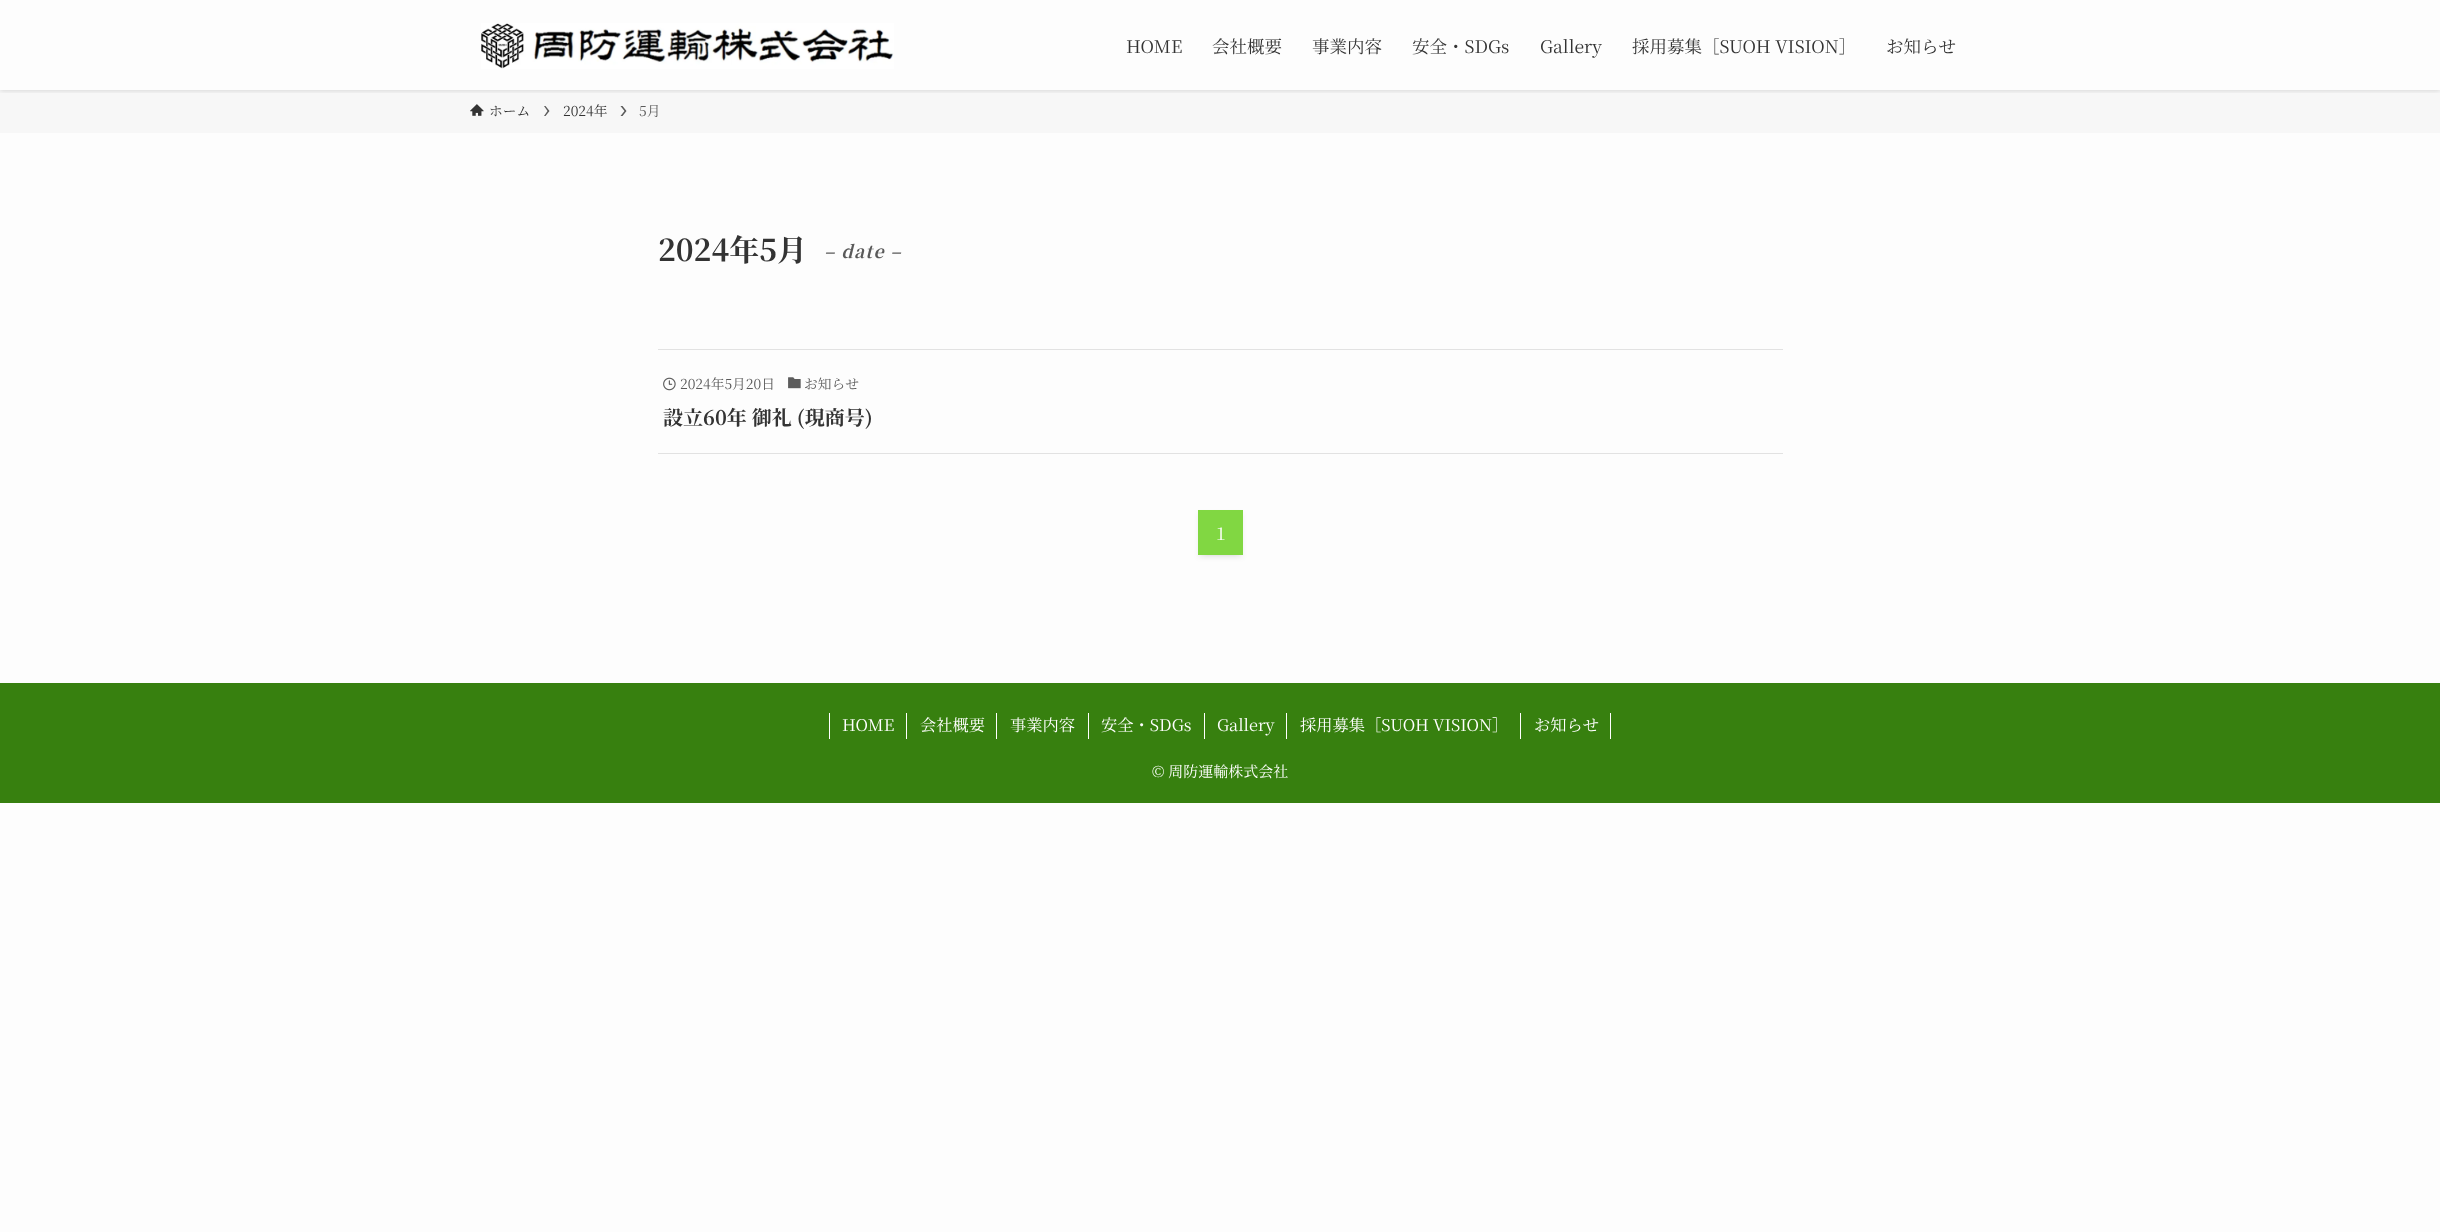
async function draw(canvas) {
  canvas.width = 2440;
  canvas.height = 1232;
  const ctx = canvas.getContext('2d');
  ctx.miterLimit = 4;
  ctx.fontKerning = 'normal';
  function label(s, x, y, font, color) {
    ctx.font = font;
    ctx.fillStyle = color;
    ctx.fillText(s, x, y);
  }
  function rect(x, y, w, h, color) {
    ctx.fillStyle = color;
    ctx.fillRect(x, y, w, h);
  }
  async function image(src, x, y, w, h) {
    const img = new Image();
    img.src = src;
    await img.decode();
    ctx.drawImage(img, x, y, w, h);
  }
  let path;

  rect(0, 0, 2440, 1232, '#fdfdfd');
  rect(0, 90, 2440, 43, '#f7f7f7');
  ctx.save();
  ctx.beginPath();
  ctx.rect(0, 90, 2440, 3);
  ctx.clip();
  ctx.fillStyle = '#0000001f';
  ctx.filter = 'blur(2.5px)';
  ctx.beginPath();
  ctx.rect(0, 1, 2440, 90);
  ctx.fill();
  ctx.filter = 'none';
  ctx.restore();
  await image('assets/img1.png', 481, 23, 413, 46);
  label('HOME', 1126, 53, '17.5px Noto Serif JP', '#333');
  label('会社概要', 1212, 53, '17.5px Noto Serif JP', '#333');
  label('事業内容', 1312, 53, '17.5px Noto Serif JP', '#333');
  label('安全・SDGs', 1412, 53, '17.5px Noto Serif JP', '#333');
  label('Gallery', 1540, 53, '17.5px Noto Serif JP', '#333');
  label('採用募集［SUOH VISION］', 1632, 53, '17.5px Noto Serif JP', '#333');
  label('お知らせ', 1886, 53, '17.5px Noto Serif JP', '#333');
  await image('assets/img2.png', 470, 104, 14, 12);
  label('ホーム', 489, 116, '13.75px Noto Serif JP', '#333');
  ctx.fillStyle = '#5a5a5a';
  path = new Path2D('M545.5 106H544L547.5 111L544 116H545.5L549.5 111Z');
  ctx.fill(path);
  label('2024年', 563, 116, '13.75px Noto Serif JP', '#333');
  ctx.fillStyle = '#5a5a5a';
  path = new Path2D('M622.5 106H620.5L624.5 111L620.5 116H622.5L626.5 111Z');
  ctx.fill(path);
  label('5月', 639, 116, '13.75px Noto Serif JP', '#5a5a5a');
  label('2024年5月', 658, 261, 'bold 30px Noto Serif JP', '#333');
  ctx.letterSpacing = '1.25px';
  label('– date –', 824, 258, 'italic bold 17.5px Noto Serif JP', '#5a5a5a');
  rect(658, 349, 1125, 1, '#e2e2e2');
  rect(658, 453, 1125, 1, '#e2e2e2');
  await image('assets/img3.png', 663, 377, 13, 14);
  ctx.letterSpacing = '0px';
  label('2024年5月20日', 680, 389, '13.75px Noto Serif JP', '#5a5a5a');
  await image('assets/img4.png', 788, 377, 13, 12);
  label('お知らせ', 804, 389, '13.75px Noto Serif JP', '#5a5a5a');
  label('設立60年 御礼 (現商号)', 663, 425, 'bold 20px Noto Serif JP', '#333');
  ctx.fillStyle = '#0000001a';
  ctx.filter = 'blur(2.5px)';
  ctx.beginPath();
  ctx.rect(1203, 520, 35, 35);
  ctx.fill();
  ctx.filter = 'none';
  ctx.fillStyle = '#0000000d';
  ctx.filter = 'blur(2.5px)';
  ctx.beginPath();
  ctx.rect(1198, 513, 45, 45);
  ctx.fill();
  ctx.filter = 'none';
  rect(1198, 510, 45, 45, '#81d742');
  label('1', 1216, 540, '17.5px Noto Serif JP', '#fff');
  rect(0, 683, 2440, 120, '#37800f');
  rect(906, 713, 1, 26, '#fff');
  rect(829, 713, 1, 26, '#fff');
  label('HOME', 842, 731, '16.25px Noto Serif JP', '#fff');
  rect(996, 713, 1, 26, '#fff');
  label('会社概要', 920, 731, '16.25px Noto Serif JP', '#fff');
  rect(1088, 713, 1, 26, '#fff');
  label('事業内容', 1010, 731, '16.25px Noto Serif JP', '#fff');
  rect(1204, 713, 1, 26, '#fff');
  label('安全・SDGs', 1101, 731, '16.25px Noto Serif JP', '#fff');
  rect(1286, 713, 1, 26, '#fff');
  label('Gallery', 1217, 731, '16.25px Noto Serif JP', '#fff');
  rect(1520, 713, 1, 26, '#fff');
  label('採用募集［SUOH VISION］', 1300, 731, '16.25px Noto Serif JP', '#fff');
  rect(1610, 713, 1, 26, '#fff');
  label('お知らせ', 1534, 731, '16.25px Noto Serif JP', '#fff');
  label('© 周防運輸株式会社', 1152, 777, '15px Noto Serif JP', '#fff');
}

draw(document.querySelector('canvas'));
